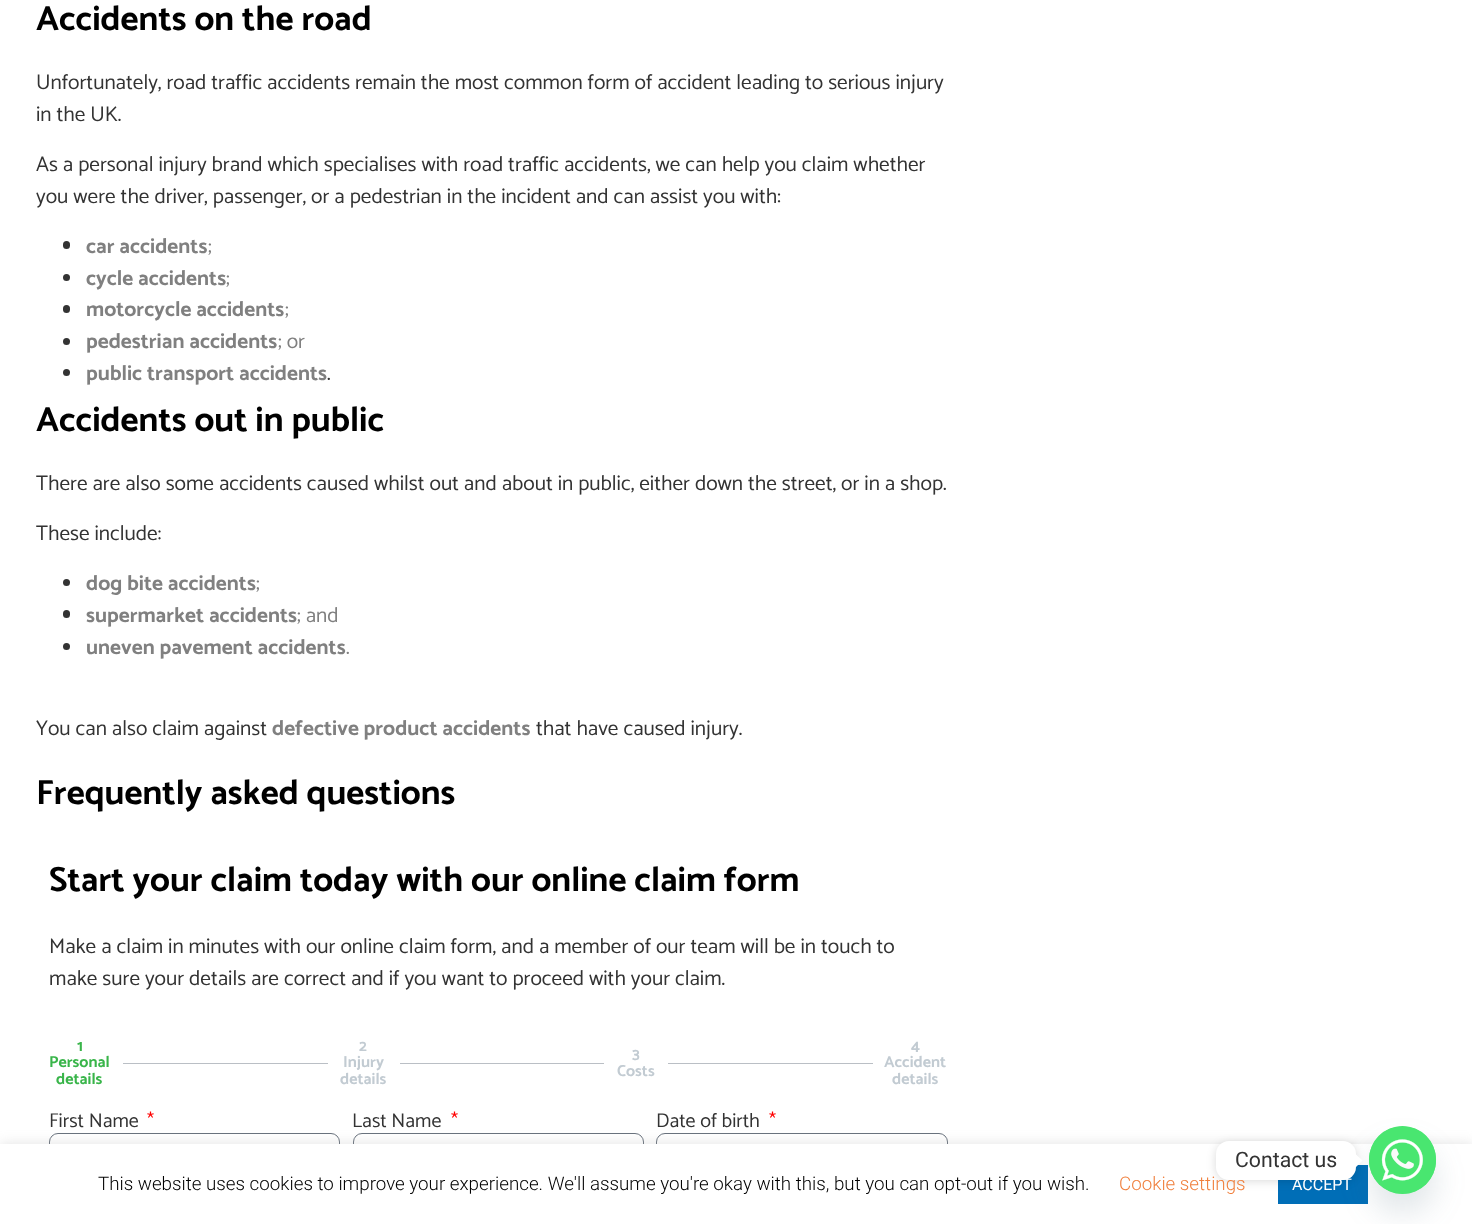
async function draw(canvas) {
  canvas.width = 1472;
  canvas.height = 1224;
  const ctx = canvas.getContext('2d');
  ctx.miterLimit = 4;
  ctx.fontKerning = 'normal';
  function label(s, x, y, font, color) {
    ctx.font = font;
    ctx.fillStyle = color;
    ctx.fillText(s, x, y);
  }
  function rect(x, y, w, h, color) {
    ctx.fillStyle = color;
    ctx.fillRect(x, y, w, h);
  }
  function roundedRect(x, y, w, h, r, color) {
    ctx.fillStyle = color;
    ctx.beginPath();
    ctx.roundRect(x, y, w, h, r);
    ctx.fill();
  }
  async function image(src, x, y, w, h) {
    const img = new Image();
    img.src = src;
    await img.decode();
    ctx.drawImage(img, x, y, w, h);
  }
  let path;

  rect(0, 0, 1472, 1224, '#fff');
  label('Accidents on the road', 36, 30, 'bold 35px Catamaran', '#000');
  label('Unfortunately, road traffic accidents remain the most common form of accident leading to serious injury', 36, 89, '21.25px Catamaran', '#333');
  label('in the UK.', 36, 121, '21.25px Catamaran', '#333');
  label('As a personal injury brand which specialises with road traffic accidents, we can help you claim whether', 36, 171, '21.25px Catamaran', '#333');
  label('you were the driver, passenger, or a pedestrian in the incident and can assist you with:', 36, 203, '21.25px Catamaran', '#333');
  roundedRect(63, 241, 7, 8, 3.5, '#333');
  label('car accidents', 86, 253, 'bold 21.25px Catamaran', '#808080');
  label(';', 208, 253, '21.25px Catamaran', '#808080');
  ctx.fillStyle = '#333';
  ctx.beginPath();
  ctx.arc(66.5, 277.5, 3.5, 0, 2 * Math.PI);
  ctx.fill();
  label('cycle accidents', 86, 285, 'bold 21.25px Catamaran', '#808080');
  label(';', 226, 285, '21.25px Catamaran', '#808080');
  roundedRect(63, 305, 7, 8, 3.5, '#333');
  label('motorcycle accidents', 86, 316, 'bold 21.25px Catamaran', '#808080');
  label(';', 285, 316, '21.25px Catamaran', '#808080');
  ctx.fillStyle = '#333';
  ctx.beginPath();
  ctx.arc(66.5, 341.5, 3.5, 0, 2 * Math.PI);
  ctx.fill();
  label('pedestrian accidents', 86, 348, 'bold 21.25px Catamaran', '#808080');
  label('; or', 278, 348, '21.25px Catamaran', '#808080');
  ctx.fillStyle = '#333';
  ctx.beginPath();
  ctx.arc(66.5, 372.5, 3.5, 0, 2 * Math.PI);
  ctx.fill();
  label('public transport accidents', 86, 380, 'bold 21.25px Catamaran', '#808080');
  label('.', 327, 380, '21.25px Catamaran', '#333');
  label('Accidents out in public', 36, 431, 'bold 35px Catamaran', '#000');
  label('There are also some accidents caused whilst out and about in public, either down the street, or in a shop.', 36, 490, '21.25px Catamaran', '#333');
  label('These include:', 36, 540, '21.25px Catamaran', '#333');
  ctx.beginPath();
  ctx.arc(66.5, 582.5, 3.5, 0, 2 * Math.PI);
  ctx.fill();
  label('dog bite accidents', 86, 590, 'bold 21.25px Catamaran', '#808080');
  label(';', 256, 590, '21.25px Catamaran', '#808080');
  roundedRect(63, 610, 7, 8, 3.5, '#333');
  label('supermarket accidents', 86, 622, 'bold 21.25px Catamaran', '#808080');
  label('; and', 297, 622, '21.25px Catamaran', '#808080');
  ctx.fillStyle = '#333';
  ctx.beginPath();
  ctx.arc(66.5, 646.5, 3.5, 0, 2 * Math.PI);
  ctx.fill();
  label('uneven pavement accidents', 86, 654, 'bold 21.25px Catamaran', '#808080');
  label('.', 346, 654, '21.25px Catamaran', '#808080');
  label('You can also claim against', 36, 735, '21.25px Catamaran', '#333');
  label('defective product accidents', 272, 735, 'bold 21.25px Catamaran', '#808080');
  label('that have caused injury.', 536, 735, '21.25px Catamaran', '#333');
  label('Frequently asked questions', 36, 804, 'bold 35px Catamaran', '#000');
  label('Start your claim today with our online claim form', 49, 891, 'bold 35px Catamaran', '#000');
  label('Make a claim in minutes with our online claim form, and a member of our team will be in touch to', 49, 953, '21.25px Catamaran', '#333');
  label('make sure your details are correct and if you want to proceed with your claim.', 49, 985, '21.25px Catamaran', '#333');
  label('1', 77, 1051, 'bold 16px Catamaran', '#39b54a');
  label('Personal', 49, 1067, 'bold 16px Catamaran', '#39b54a');
  label('details', 56, 1084, 'bold 16px Catamaran', '#39b54a');
  rect(123, 1063, 205, 1, '#babfc5');
  label('2', 359, 1051, 'bold 16px Catamaran', '#c2cbd2');
  label('Injury', 343, 1067, 'bold 16px Catamaran', '#c2cbd2');
  label('details', 340, 1084, 'bold 16px Catamaran', '#c2cbd2');
  rect(400, 1063, 204, 1, '#babfc5');
  label('3', 632, 1059, 'bold 16px Catamaran', '#c2cbd2');
  label('Costs', 617, 1076, 'bold 16px Catamaran', '#c2cbd2');
  rect(668, 1063, 205, 1, '#babfc5');
  label('4', 911, 1051, 'bold 16px Catamaran', '#c2cbd2');
  label('Accident', 884, 1067, 'bold 16px Catamaran', '#c2cbd2');
  label('details', 892, 1084, 'bold 16px Catamaran', '#c2cbd2');
  label('First Name', 49, 1127, '20px Catamaran', '#333');
  label('*', 147, 1127, '20px Catamaran', '#f00');
  ctx.beginPath();
  ctx.roundRect(49.5, 1133.5, 290, 49, 8.5);
  ctx.strokeStyle = '#69727d';
  ctx.stroke();
  label('Last Name', 352, 1127, '20px Catamaran', '#333');
  label('*', 451, 1127, '20px Catamaran', '#f00');
  ctx.beginPath();
  ctx.roundRect(353.5, 1133.5, 290, 49, 8.5);
  ctx.stroke();
  label('Date of birth', 656, 1127, '20px Catamaran', '#333');
  label('*', 769, 1127, '20px Catamaran', '#f00');
  ctx.beginPath();
  ctx.roundRect(656.5, 1133.5, 291, 49, 8.5);
  ctx.stroke();
  ctx.fillStyle = '#acabab4d';
  ctx.filter = 'blur(6px)';
  ctx.beginPath();
  ctx.rect(0, 1143, 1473, 81);
  ctx.fill();
  ctx.filter = 'none';
  rect(0, 1144, 1472, 80, '#fff');
  rect(1278, 1165, 90, 39, '#006eb7');
  ctx.fillStyle = '#49687e29';
  ctx.filter = 'blur(15px)';
  ctx.beginPath();
  ctx.roundRect(1369, 1146, 67, 68, 33.5);
  ctx.fill();
  ctx.filter = 'none';
  roundedRect(1369, 1126, 67, 68, 33.5, '#49e670');
  await image('assets/img1.png', 1369, 1126, 67, 68);
  ctx.fillStyle = '#00000026';
  ctx.filter = 'blur(5px)';
  ctx.beginPath();
  ctx.roundRect(1216, 1143, 140, 38, 13);
  ctx.fill();
  ctx.filter = 'none';
  label('Cookie settings', 1119, 1190, '300 18.75px Roboto', '#f07f3c');
  roundedRect(1216, 1141, 140, 39, 13, '#fff');
  label('Contact us', 1235, 1167, '21.25px Roboto', '#333');
  ctx.fillStyle = '#fff';
  path = new Path2D('M1356 1167V1154.5L1362.5 1160.5Z');
  ctx.fill(path);
  label('This website uses cookies to improve your experience. We\'ll assume you\'re okay with this, but you can opt-out if you wish.', 98, 1190, '300 18.75px Roboto', '#000');
  label('ACCEPT', 1292, 1190, '16px Roboto', '#fff');
}

draw(document.querySelector('canvas'));
